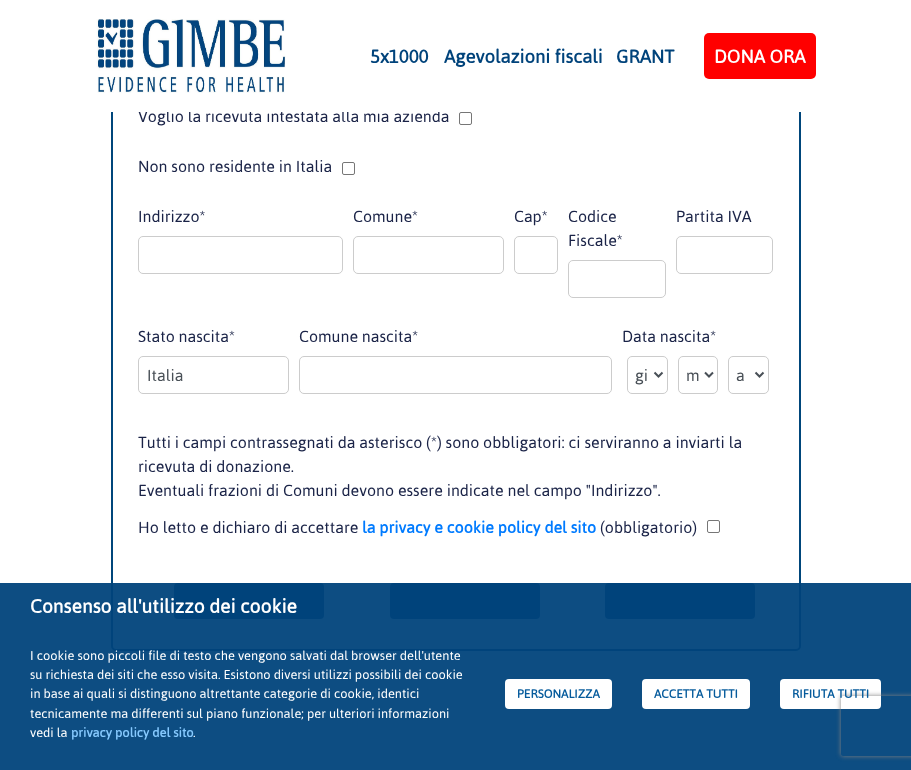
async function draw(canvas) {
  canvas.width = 911;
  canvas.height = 770;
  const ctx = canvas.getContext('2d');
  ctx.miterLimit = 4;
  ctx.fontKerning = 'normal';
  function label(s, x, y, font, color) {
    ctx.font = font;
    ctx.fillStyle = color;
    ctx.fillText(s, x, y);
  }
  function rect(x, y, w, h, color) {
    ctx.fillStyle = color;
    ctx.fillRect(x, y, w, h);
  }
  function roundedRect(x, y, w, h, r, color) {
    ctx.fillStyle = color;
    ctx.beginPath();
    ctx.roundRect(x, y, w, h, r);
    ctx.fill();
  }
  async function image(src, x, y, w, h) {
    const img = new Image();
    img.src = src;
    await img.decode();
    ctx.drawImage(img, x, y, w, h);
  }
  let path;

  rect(0, 0, 911, 770, '#fff');
  ctx.beginPath();
  ctx.roundRect(112, -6, 688, 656, 4);
  ctx.strokeStyle = '#00467b';
  ctx.lineWidth = 2;
  ctx.stroke();
  label('Voglio la ricevuta intestata alla mia azienda', 138, 122, '16px Asap', '#1a2347');
  rect(111, 0, 690, 112, '#fff');
  await image('assets/img1.png', 96, 19, 190, 74);
  label('5x1000', 370, 63, 'bold 18.5px Asap', '#00437b');
  label('Agevolazioni fiscali', 444, 63, 'bold 18.5px Asap', '#00437b');
  label('GRANT', 616, 63, 'bold 18.5px Asap', '#00437b');
  roundedRect(704, 33, 112, 46, 5, '#f00');
  label('DONA ORA', 714, 63, 'bold 18.5px Asap', '#fff');
  ctx.beginPath();
  ctx.roundRect(459.5, 112.5, 12, 12, 1.5);
  ctx.strokeStyle = '#767676';
  ctx.lineWidth = 1;
  ctx.stroke();
  label('Non sono residente in Italia', 138, 172, '16px Asap', '#1a2347');
  ctx.beginPath();
  ctx.roundRect(342.5, 162.5, 12, 12, 1.5);
  ctx.stroke();
  label('Indirizzo*', 138, 222, '16px Asap', '#1a2347');
  ctx.beginPath();
  ctx.roundRect(138.5, 236.5, 204, 37, 4.5);
  ctx.strokeStyle = '#ccc';
  ctx.stroke();
  label('Comune*', 353, 222, '16px Asap', '#1a2347');
  ctx.beginPath();
  ctx.roundRect(353.5, 236.5, 150, 37, 4.5);
  ctx.stroke();
  label('Cap*', 514, 222, '16px Asap', '#1a2347');
  ctx.beginPath();
  ctx.roundRect(514.5, 236.5, 43, 37, 4.5);
  ctx.stroke();
  label('Codice', 568, 222, '16px Asap', '#1a2347');
  label('Fiscale*', 568, 246, '16px Asap', '#1a2347');
  ctx.beginPath();
  ctx.roundRect(568.5, 260.5, 97, 37, 4.5);
  ctx.stroke();
  label('Partita IVA', 676, 222, '16px Asap', '#1a2347');
  ctx.beginPath();
  ctx.roundRect(676.5, 236.5, 96, 37, 4.5);
  ctx.stroke();
  label('Stato nascita*', 138, 342, '16px Asap', '#1a2347');
  ctx.beginPath();
  ctx.roundRect(138.5, 356.5, 150, 37, 4.5);
  ctx.stroke();
  label('Italia', 147, 381, '16px Asap', '#495057');
  label('Comune nascita*', 299, 342, '16px Asap', '#1a2347');
  ctx.beginPath();
  ctx.roundRect(299.5, 356.5, 312, 37, 4.5);
  ctx.stroke();
  label('Data nascita*', 622, 342, '16px Asap', '#1a2347');
  ctx.beginPath();
  ctx.roundRect(627.5, 356.5, 40, 37, 4.5);
  ctx.stroke();
  path = new Path2D('M654.5 372.5L658.5 376.5L662.5 372.5');
  ctx.strokeStyle = '#495057';
  ctx.lineWidth = 2;
  ctx.stroke(path);
  label('gi', 635, 381, '16px Asap', '#495057');
  ctx.beginPath();
  ctx.roundRect(678.5, 356.5, 39, 37, 4.5);
  ctx.strokeStyle = '#ccc';
  ctx.lineWidth = 1;
  ctx.stroke();
  path = new Path2D('M705 372.5L709 376.5L713 372.5');
  ctx.strokeStyle = '#495057';
  ctx.lineWidth = 2;
  ctx.stroke(path);
  label('m', 686, 381, '16px Asap', '#495057');
  ctx.beginPath();
  ctx.roundRect(728.5, 356.5, 40, 37, 4.5);
  ctx.strokeStyle = '#ccc';
  ctx.lineWidth = 1;
  ctx.stroke();
  path = new Path2D('M755.5 372.5L759.5 376.5L763.5 372.5');
  ctx.strokeStyle = '#495057';
  ctx.lineWidth = 2;
  ctx.stroke(path);
  label('a', 736, 381, '16px Asap', '#495057');
  label('Tutti i campi contrassegnati da asterisco (*) sono obbligatori: ci serviranno a inviarti la', 138, 448, '16px Asap', '#1a2347');
  label('ricevuta di donazione.', 138, 472, '16px Asap', '#1a2347');
  label('Eventuali frazioni di Comuni devono essere indicate nel campo "Indirizzo".', 138, 496, '16px Asap', '#1a2347');
  label('Ho letto e dichiaro di accettare', 138, 533, '16px Asap', '#1a2347');
  label('la privacy e cookie policy del sito', 362, 533, 'bold 16px Asap', '#007bff');
  label('(obbligatorio)', 600, 533, '16px Asap', '#1a2347');
  ctx.beginPath();
  ctx.roundRect(707.5, 520.5, 12, 12, 1.5);
  ctx.strokeStyle = '#767676';
  ctx.lineWidth = 1;
  ctx.stroke();
  roundedRect(174, 583, 150, 36, 4, '#00437b');
  roundedRect(390, 583, 150, 36, 4, '#00437b');
  roundedRect(605, 583, 150, 36, 4, '#00437b');
  rect(0, 583, 911, 187, '#00437bf2');
  roundedRect(780, 679, 101, 30, 4, '#fff');
  ctx.save();
  path = new Path2D('M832 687H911V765H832ZM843 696H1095C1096 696 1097 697 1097 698V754C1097 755 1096 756 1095 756H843C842 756 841 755 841 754V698C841 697 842 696 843 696Z');
  ctx.clip(path, 'evenodd');
  ctx.fillStyle = '#808080';
  ctx.filter = 'blur(2.5px)';
  ctx.beginPath();
  ctx.roundRect(841, 696, 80, 60, 2);
  ctx.fill();
  ctx.filter = 'none';
  ctx.restore();
  label('Consenso all\'utilizzo dei cookie', 30, 613, 'bold 19.25px Asap', '#fff');
  label('I cookie sono piccoli file di testo che vengono salvati dal browser dell\'utente', 30, 660, '12.8px Asap', '#fff');
  label('su richiesta dei siti che esso visita. Esistono diversi utilizzi possibili dei cookie', 30, 679, '12.8px Asap', '#fff');
  label('in base ai quali si distinguono altrettante categorie di cookie, identici', 30, 698, '12.8px Asap', '#fff');
  label('tecnicamente ma differenti sul piano funzionale; per ulteriori informazioni', 30, 718, '12.8px Asap', '#fff');
  label('vedi la', 30, 737, '12.8px Asap', '#fff');
  label('privacy policy del sito', 71, 737, 'bold 12.8px Asap', '#86c9fe');
  label('.', 193, 737, '12.8px Asap', '#fff');
  roundedRect(505, 679, 107, 30, 4, '#fff');
  label('PERSONALIZZA', 517, 698, 'bold 12px Asap', '#065b9c');
  roundedRect(642, 679, 108, 30, 4, '#fff');
  label('ACCETTA TUTTI', 654, 698, 'bold 12px Asap', '#065b9c');
  label('RIFIUTA TUTTI', 792, 698, 'bold 12px Asap', '#065b9c');
}

draw(document.querySelector('canvas'));
